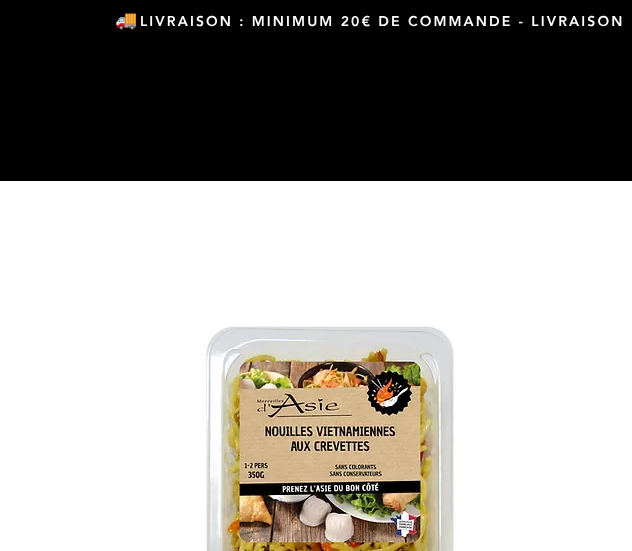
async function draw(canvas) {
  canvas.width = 632;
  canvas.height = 551;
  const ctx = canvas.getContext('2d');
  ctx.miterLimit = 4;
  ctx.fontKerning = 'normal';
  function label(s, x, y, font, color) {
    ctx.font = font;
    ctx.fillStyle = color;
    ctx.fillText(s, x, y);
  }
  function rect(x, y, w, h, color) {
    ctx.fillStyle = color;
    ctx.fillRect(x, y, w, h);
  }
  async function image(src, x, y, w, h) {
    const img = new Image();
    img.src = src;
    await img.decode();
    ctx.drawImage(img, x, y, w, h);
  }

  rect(0, 0, 632, 551, '#fff');
  rect(0, 0, 632, 181, '#000');
  ctx.letterSpacing = '3px';
  label('🚚', 115, 26, '18px Noto Color Emoji', '#fff');
  ctx.letterSpacing = '2.1px';
  label('LIVRAISON : MINIMUM 20€ DE COMMANDE - LIVRAISON', 140, 26, '900 14px "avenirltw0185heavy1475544"', '#fff');
  await image('assets/img1.png', 204, 326, 252, 225);
}

draw(document.querySelector('canvas'));
